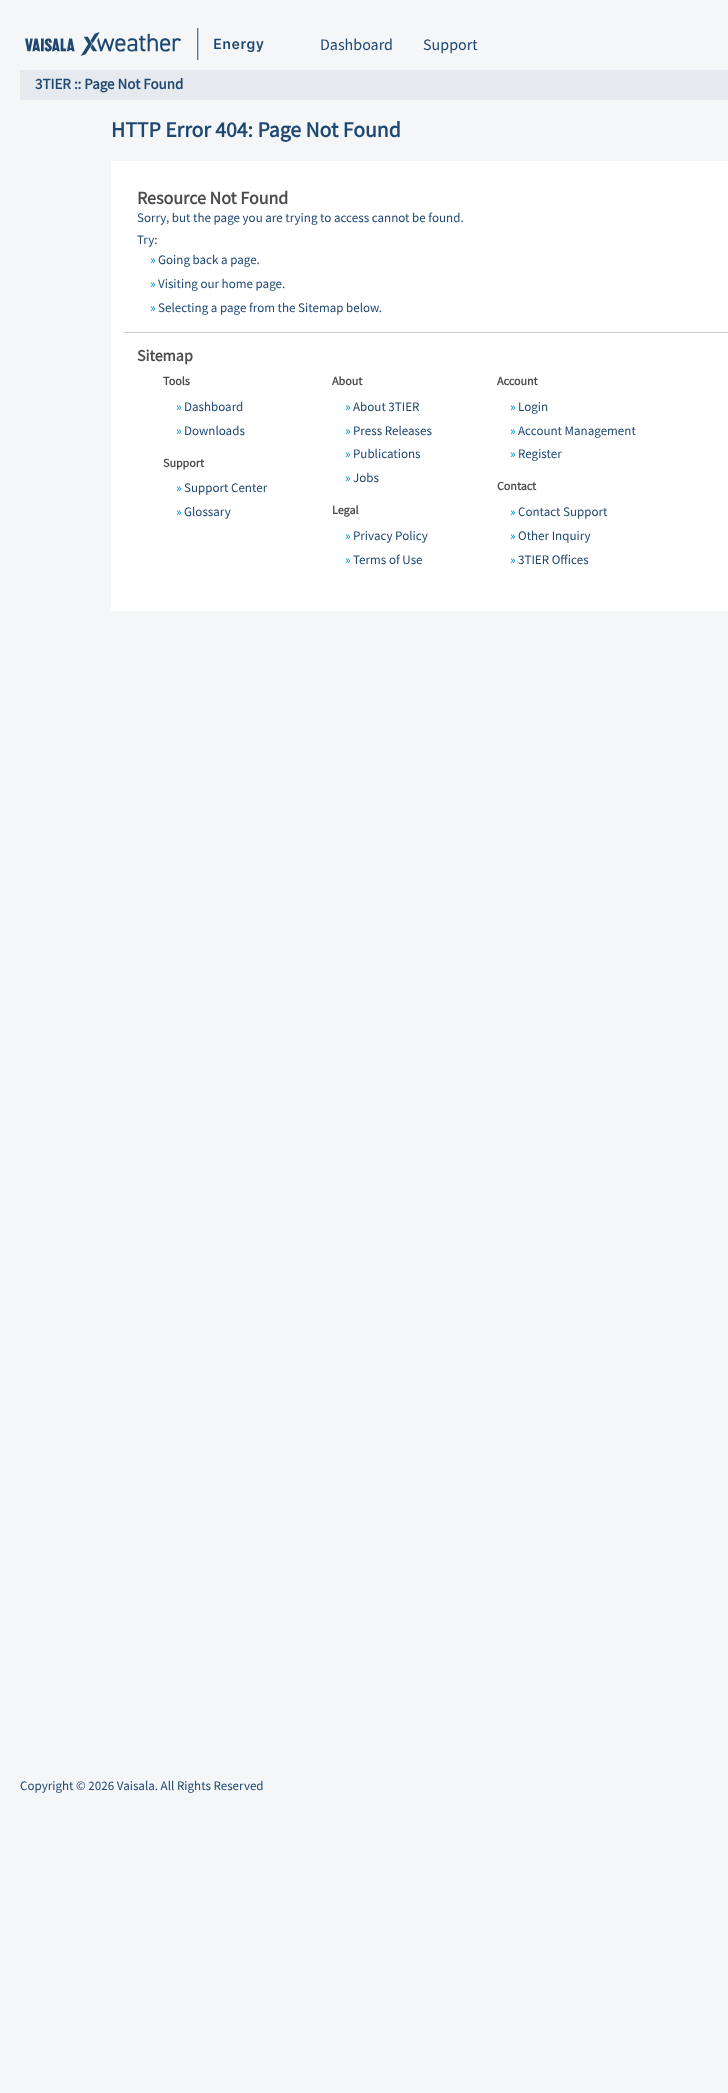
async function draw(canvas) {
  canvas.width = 728;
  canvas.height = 2093;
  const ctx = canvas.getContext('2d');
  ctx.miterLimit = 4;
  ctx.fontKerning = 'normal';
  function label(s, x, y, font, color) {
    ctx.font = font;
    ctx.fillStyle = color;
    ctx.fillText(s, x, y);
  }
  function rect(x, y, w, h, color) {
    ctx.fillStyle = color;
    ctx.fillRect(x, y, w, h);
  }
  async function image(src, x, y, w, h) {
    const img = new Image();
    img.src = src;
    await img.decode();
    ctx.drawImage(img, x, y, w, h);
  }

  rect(0, 0, 728, 2093, '#f5f6f8');
  await image('assets/img1.png', 25, 28, 239, 32);
  label('Dashboard', 320, 50, '16px Source Sans Pro', '#1e4772');
  label('Support', 423, 50, '16px Source Sans Pro', '#1e4772');
  rect(20, 70, 708, 30, '#e6e9ed');
  label('3TIER :: Page Not Found', 35, 89, 'bold 15px Source Sans Pro', '#1e4772');
  label('HTTP Error 404: Page Not Found', 111, 137, 'bold 21.75px Source Sans Pro', '#1e4772');
  rect(111, 161, 617, 450, '#fff');
  rect(124, 332, 604, 1, '#cdcdcd');
  label('Resource Not Found', 137, 204, 'bold 18px Source Sans Pro', '#4b4b4b');
  label('Sorry, but the page you are trying to access cannot be found.', 137, 222, '13px Source Sans Pro', '#1e4772');
  label('Try:', 137, 244, '13px Source Sans Pro', '#1e4772');
  label('»', 150, 264, '13px Source Sans Pro', '#009ac8');
  label('Going back a page.', 158, 264, '13px Source Sans Pro', '#1e4772');
  label('»', 150, 288, '13px Source Sans Pro', '#009ac8');
  label('Visiting our home page.', 158, 288, '13px Source Sans Pro', '#1e4772');
  label('»', 150, 312, '13px Source Sans Pro', '#009ac8');
  label('Selecting a page from the Sitemap below.', 158, 312, '13px Source Sans Pro', '#1e4772');
  label('Sitemap', 137, 361, 'bold 16px Source Sans Pro', '#4b4b4b');
  label('Tools', 163, 385, 'bold 12px Source Sans Pro', '#4b4b4b');
  label('»', 176, 411, '13px Source Sans Pro', '#009ac8');
  label('Dashboard', 184, 411, '13px Source Sans Pro', '#1e4772');
  label('»', 176, 435, '13px Source Sans Pro', '#009ac8');
  label('Downloads', 184, 435, '13px Source Sans Pro', '#1e4772');
  label('Support', 163, 467, 'bold 12px Source Sans Pro', '#4b4b4b');
  label('»', 176, 492, '13px Source Sans Pro', '#009ac8');
  label('Support Center', 184, 492, '13px Source Sans Pro', '#1e4772');
  label('»', 176, 516, '13px Source Sans Pro', '#009ac8');
  label('Glossary', 184, 516, '13px Source Sans Pro', '#1e4772');
  label('About', 332, 385, 'bold 12px Source Sans Pro', '#4b4b4b');
  label('»', 345, 411, '13px Source Sans Pro', '#009ac8');
  label('About 3TIER', 353, 411, '13px Source Sans Pro', '#1e4772');
  label('»', 345, 435, '13px Source Sans Pro', '#009ac8');
  label('Press Releases', 353, 435, '13px Source Sans Pro', '#1e4772');
  label('»', 345, 458, '13px Source Sans Pro', '#009ac8');
  label('Publications', 353, 458, '13px Source Sans Pro', '#1e4772');
  label('»', 345, 482, '13px Source Sans Pro', '#009ac8');
  label('Jobs', 353, 482, '13px Source Sans Pro', '#1e4772');
  label('Legal', 332, 514, 'bold 12px Source Sans Pro', '#4b4b4b');
  label('»', 345, 540, '13px Source Sans Pro', '#009ac8');
  label('Privacy Policy', 353, 540, '13px Source Sans Pro', '#1e4772');
  label('»', 345, 564, '13px Source Sans Pro', '#009ac8');
  label('Terms of Use', 353, 564, '13px Source Sans Pro', '#1e4772');
  label('Account', 497, 385, 'bold 12px Source Sans Pro', '#4b4b4b');
  label('»', 510, 411, '13px Source Sans Pro', '#009ac8');
  label('Login', 518, 411, '13px Source Sans Pro', '#1e4772');
  label('»', 510, 435, '13px Source Sans Pro', '#009ac8');
  label('Account Management', 518, 435, '13px Source Sans Pro', '#1e4772');
  label('»', 510, 458, '13px Source Sans Pro', '#009ac8');
  label('Register', 518, 458, '13px Source Sans Pro', '#1e4772');
  label('Contact', 497, 490, 'bold 12px Source Sans Pro', '#4b4b4b');
  label('»', 510, 516, '13px Source Sans Pro', '#009ac8');
  label('Contact Support', 518, 516, '13px Source Sans Pro', '#1e4772');
  label('»', 510, 540, '13px Source Sans Pro', '#009ac8');
  label('Other Inquiry', 518, 540, '13px Source Sans Pro', '#1e4772');
  label('»', 510, 564, '13px Source Sans Pro', '#009ac8');
  label('3TIER Offices', 518, 564, '13px Source Sans Pro', '#1e4772');
  label('Copyright © 2026 Vaisala. All Rights Reserved', 20, 1790, '13px Source Sans Pro', '#1e4772');
}

draw(document.querySelector('canvas'));
